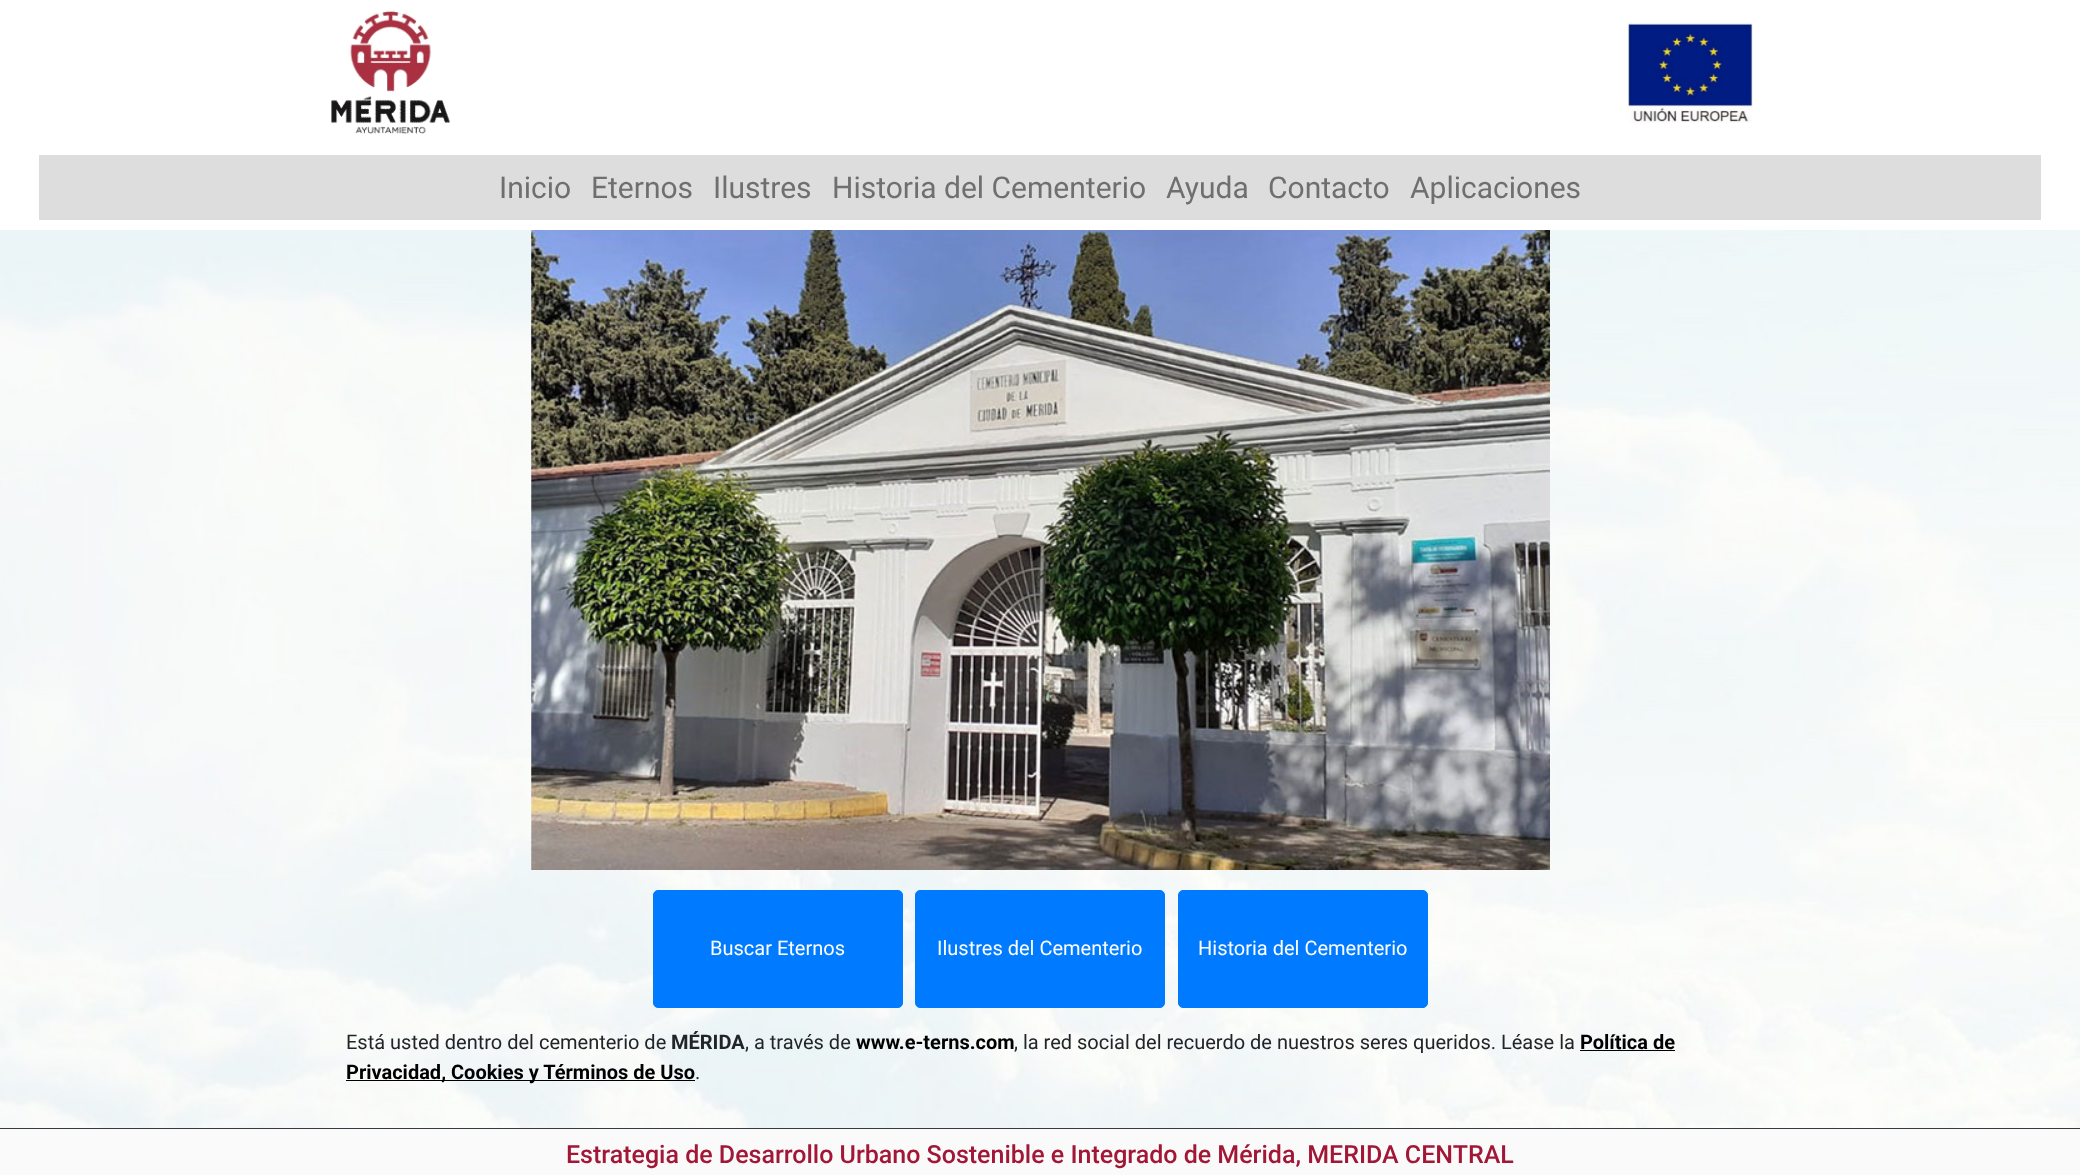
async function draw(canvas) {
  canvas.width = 2080;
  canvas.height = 1175;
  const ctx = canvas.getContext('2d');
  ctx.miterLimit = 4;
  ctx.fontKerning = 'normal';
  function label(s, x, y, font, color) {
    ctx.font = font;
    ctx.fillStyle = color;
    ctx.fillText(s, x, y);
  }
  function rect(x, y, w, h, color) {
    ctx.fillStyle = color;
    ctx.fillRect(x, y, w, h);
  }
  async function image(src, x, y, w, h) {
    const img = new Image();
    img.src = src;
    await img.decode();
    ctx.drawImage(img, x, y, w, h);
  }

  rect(0, 0, 2080, 1175, '#fff');
  await image('assets/img1.png', 0, 230, 2080, 898);
  await image('assets/img2.png', 331, 10, 119, 124);
  await image('assets/img3.png', 1627, 22, 126, 101);
  rect(39, 155, 2002, 65, '#ddd');
  label('Inicio', 499, 198, '30px Roboto', '#6f6f6f');
  label('Eternos', 591, 198, '30px Roboto', '#6f6f6f');
  label('Ilustres', 713, 198, '30px Roboto', '#6f6f6f');
  label('Historia del Cementerio', 832, 198, '30px Roboto', '#6f6f6f');
  label('Ayuda', 1166, 198, '30px Roboto', '#6f6f6f');
  label('Contacto', 1268, 198, '30px Roboto', '#6f6f6f');
  label('Aplicaciones', 1410, 198, '30px Roboto', '#6f6f6f');
  await image('assets/img4.png', 531, 230, 1019, 640);
  ctx.fillStyle = '#007bff';
  ctx.beginPath();
  ctx.roundRect(653.5, 890.5, 249, 117, 4.5);
  ctx.fill();
  ctx.strokeStyle = '#007bff';
  ctx.stroke();
  label('Buscar Eternos', 710, 955, '20px Roboto', '#fff');
  ctx.fillStyle = '#007bff';
  ctx.beginPath();
  ctx.roundRect(915.5, 890.5, 249, 117, 4.5);
  ctx.fill();
  ctx.stroke();
  label('Ilustres del Cementerio', 937, 955, '20px Roboto', '#fff');
  ctx.fillStyle = '#007bff';
  ctx.beginPath();
  ctx.roundRect(1178.5, 890.5, 249, 117, 4.5);
  ctx.fill();
  ctx.stroke();
  label('Historia del Cementerio', 1198, 955, '20px Roboto', '#fff');
  label('Está usted dentro del cementerio de', 346, 1049, '20px Roboto', '#212529');
  label('MÉRIDA', 671, 1049, 'bold 20px Roboto', '#212529');
  label(', a través de', 745, 1049, '20px Roboto', '#212529');
  label('www.e-terns.com', 856, 1049, 'bold 20px Roboto', '#000');
  label(', la red social del recuerdo de nuestros seres queridos. Léase la', 1014, 1049, '20px Roboto', '#212529');
  label('Política de', 1580, 1049, 'bold 20px Roboto', '#000');
  rect(1580, 1050, 95, 1, '#000');
  rect(346, 1080, 349, 1, '#000');
  label('Privacidad, Cookies y Términos de Uso', 346, 1079, 'bold 20px Roboto', '#000');
  label('.', 695, 1079, '20px Roboto', '#212529');
  rect(0, 1129, 2080, 46, '#fafafa');
  rect(0, 1128, 2080, 1, '#343a40');
  label('Estrategia de Desarrollo Urbano Sostenible e Integrado de Mérida, MERIDA CENTRAL', 566, 1163, '500 25px Roboto', '#a21636');
}

draw(document.querySelector('canvas'));
